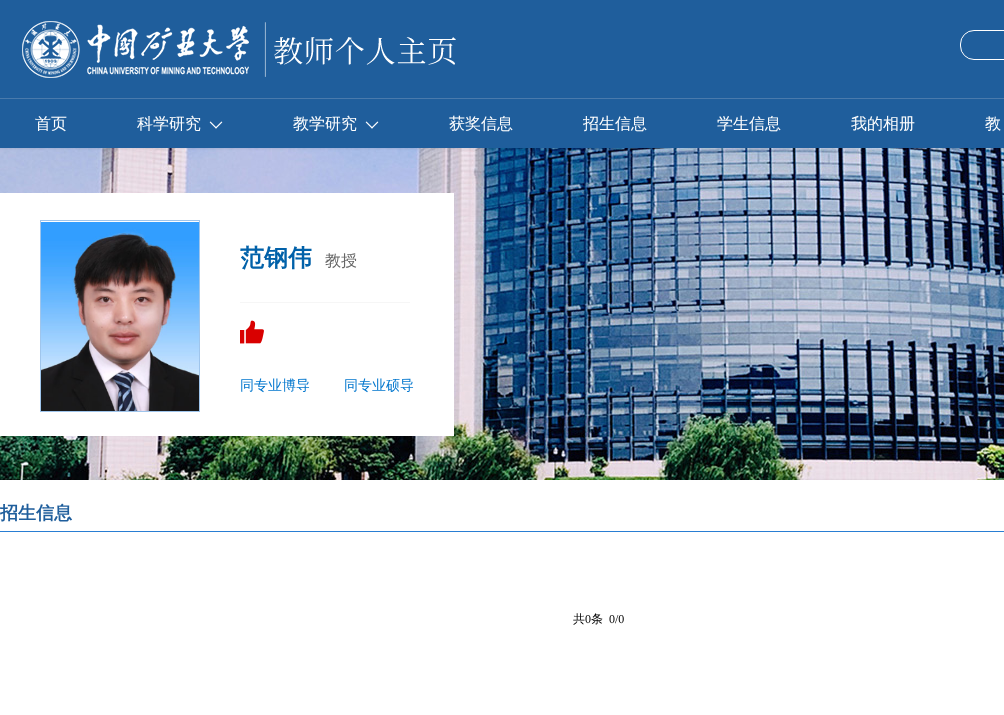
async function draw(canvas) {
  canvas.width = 1004;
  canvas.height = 715;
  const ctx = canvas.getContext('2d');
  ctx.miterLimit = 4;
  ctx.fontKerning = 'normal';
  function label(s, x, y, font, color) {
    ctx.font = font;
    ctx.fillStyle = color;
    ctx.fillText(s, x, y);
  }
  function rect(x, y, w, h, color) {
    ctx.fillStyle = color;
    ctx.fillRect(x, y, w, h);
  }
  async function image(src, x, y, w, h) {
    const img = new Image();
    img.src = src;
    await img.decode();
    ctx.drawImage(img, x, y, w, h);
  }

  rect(0, 0, 1004, 715, '#fff');
  await image('assets/img3.png', 0, 148, 1004, 332);
  ctx.fillStyle = '#00000021';
  ctx.filter = 'blur(1.5px)';
  ctx.beginPath();
  ctx.rect(0, 0, 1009, 148);
  ctx.fill();
  ctx.filter = 'none';
  rect(0, 0, 1004, 148, '#1f5e9c');
  await image('assets/img1.png', 22, 21, 434, 57);
  ctx.beginPath();
  ctx.roundRect(960.5, 30.5, 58, 29, 13.5);
  ctx.strokeStyle = '#fff';
  ctx.stroke();
  rect(0, 98, 1004, 1, '#497aac');
  label('首页', 35, 129, '500 16px WenQuanYi Zen Hei', '#fff');
  label('科学研究', 137, 129, '500 16px WenQuanYi Zen Hei', '#fff');
  await image('assets/img2.png', 209, 121, 14, 8);
  label('教学研究', 293, 129, '500 16px WenQuanYi Zen Hei', '#fff');
  await image('assets/img2.png', 365, 121, 14, 8);
  label('获奖信息', 449, 129, '500 16px WenQuanYi Zen Hei', '#fff');
  label('招生信息', 583, 129, '500 16px WenQuanYi Zen Hei', '#fff');
  label('学生信息', 717, 129, '500 16px WenQuanYi Zen Hei', '#fff');
  label('我的相册', 851, 129, '500 16px WenQuanYi Zen Hei', '#fff');
  label('教', 985, 129, '500 16px WenQuanYi Zen Hei', '#fff');
  rect(0, 193, 454, 243, '#fff');
  ctx.strokeStyle = '#9fc5ec';
  ctx.strokeRect(40.5, 220.5, 159, 191);
  await image('assets/img4.png', 41, 222, 158, 189);
  label('范钢伟', 240, 266, 'bold 24px WenQuanYi Zen Hei', '#0161a9');
  label('教授', 325, 266, '500 16px WenQuanYi Zen Hei', '#666');
  rect(240, 302, 170, 1, '#f6f6f6');
  await image('assets/img5.png', 240, 320, 24, 24);
  label('同专业博导', 240, 390, '500 14px WenQuanYi Zen Hei', '#0377ce');
  label('同专业硕导', 344, 390, '500 14px WenQuanYi Zen Hei', '#0377ce');
  rect(0, 531, 1004, 1, '#297ed3');
  label('招生信息', 0, 519, 'bold 18px WenQuanYi Zen Hei', '#1f5e9c');
  label('共', 573, 623, '500 12px WenQuanYi Zen Hei', '#000');
  label('0', 585, 623, '12px Liberation Serif', '#000');
  label('条', 591, 623, '500 12px WenQuanYi Zen Hei', '#000');
  label('0/0', 609, 623, '12px Liberation Serif', '#000');
}

draw(document.querySelector('canvas'));
